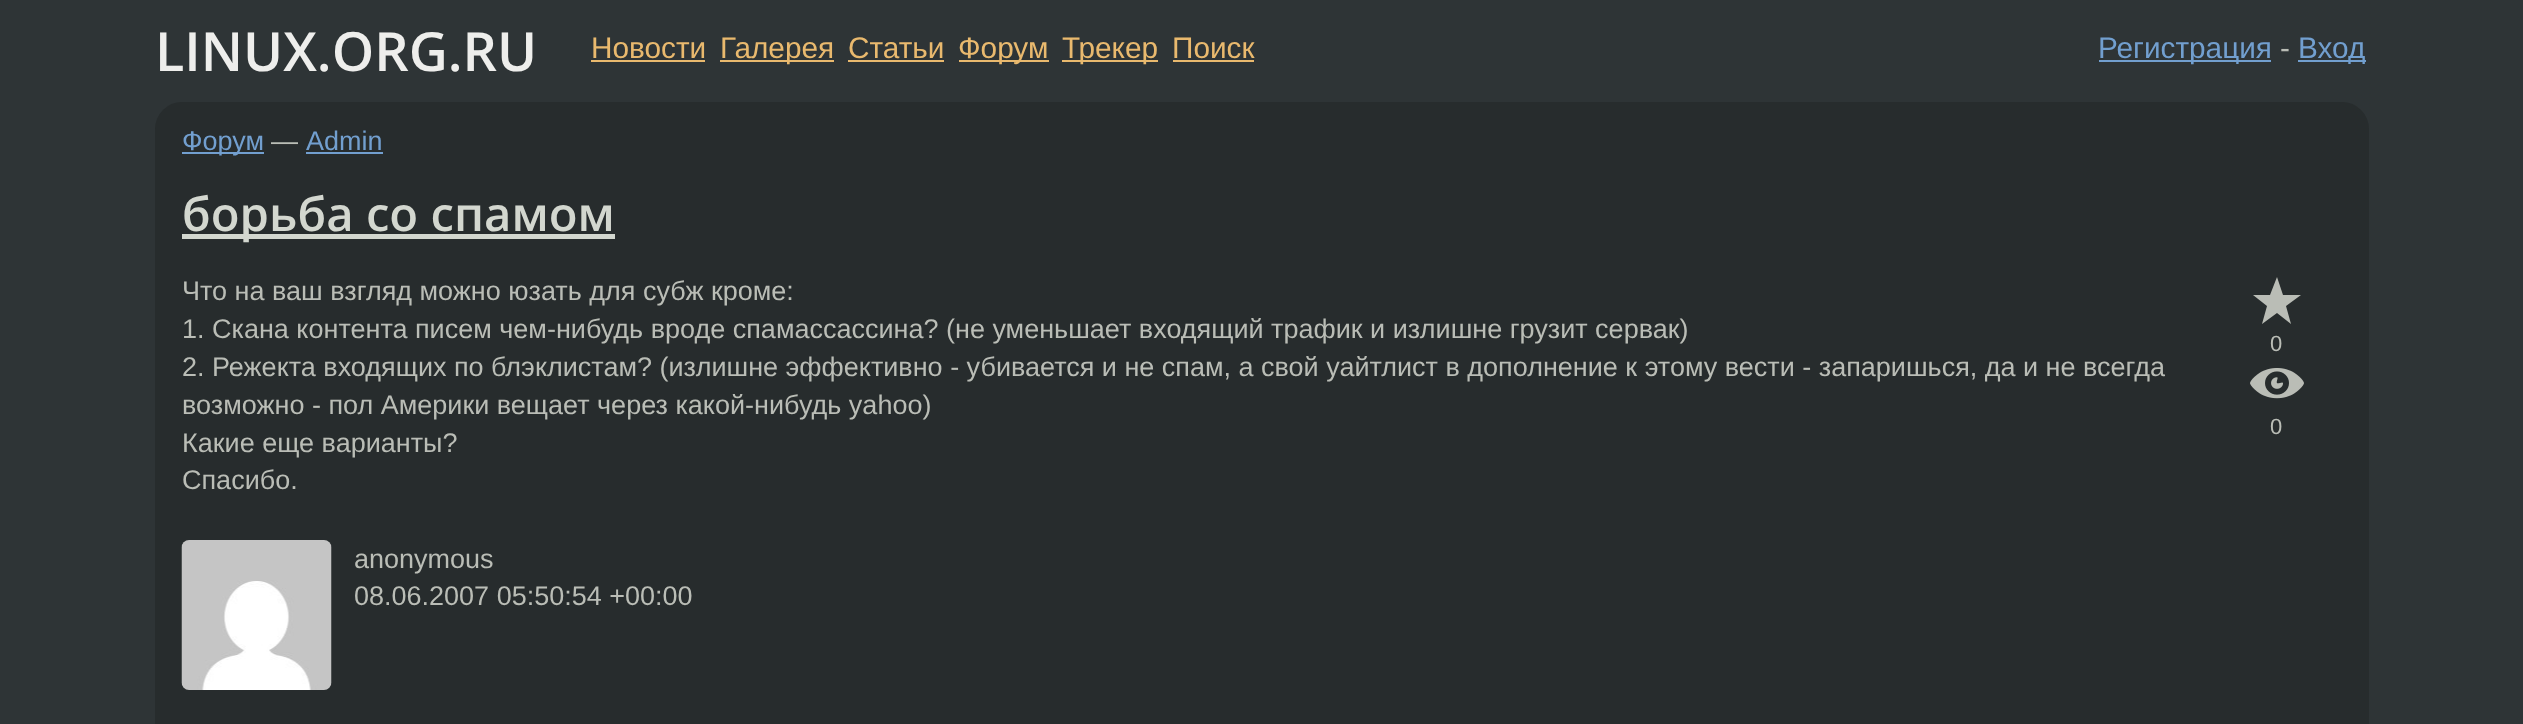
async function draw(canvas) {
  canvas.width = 2523;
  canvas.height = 724;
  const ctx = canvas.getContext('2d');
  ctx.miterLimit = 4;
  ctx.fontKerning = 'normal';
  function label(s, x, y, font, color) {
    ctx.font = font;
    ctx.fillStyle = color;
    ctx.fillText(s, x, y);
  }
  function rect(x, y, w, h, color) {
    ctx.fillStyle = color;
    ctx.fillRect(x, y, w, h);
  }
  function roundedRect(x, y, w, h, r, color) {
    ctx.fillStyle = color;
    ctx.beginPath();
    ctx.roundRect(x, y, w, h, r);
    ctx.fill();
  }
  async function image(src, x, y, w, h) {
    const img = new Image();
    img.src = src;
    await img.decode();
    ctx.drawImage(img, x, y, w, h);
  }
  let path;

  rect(0, 0, 2523, 724, '#2e3436');
  label('LINUX.ORG.RU', 155, 71, '600 54px Open Sans', '#eeeeec');
  label('Новости', 591, 58, '29.75px Liberation Sans', '#e9b96e');
  rect(591, 60, 114, 2, '#e9b96e');
  rect(720, 60, 114, 2, '#e9b96e');
  label('Галерея', 720, 58, '29.75px Liberation Sans', '#e9b96e');
  label('Статьи', 848, 58, '29.75px Liberation Sans', '#e9b96e');
  rect(848, 60, 96, 2, '#e9b96e');
  rect(959, 60, 90, 2, '#e9b96e');
  label('Форум', 958, 58, '29.75px Liberation Sans', '#e9b96e');
  rect(1062, 60, 96, 2, '#e9b96e');
  label('Трекер', 1062, 58, '29.75px Liberation Sans', '#e9b96e');
  label('Поиск', 1172, 58, '29.75px Liberation Sans', '#e9b96e');
  rect(1173, 60, 81, 2, '#e9b96e');
  rect(2099, 60, 172, 2, '#729fcf');
  label('Регистрация', 2098, 58, '29.75px Liberation Sans', '#729fcf');
  label('-', 2280, 58, '29.75px Liberation Sans', '#babdb6');
  rect(2298, 60, 68, 2, '#729fcf');
  label('Вход', 2298, 58, '29.75px Liberation Sans', '#729fcf');
  roundedRect(155, 102, 2214, 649, 27, '#272c2d');
  rect(182, 152, 82, 2, '#729fcf');
  label('Форум', 182, 150, '27px Liberation Sans', '#729fcf');
  label('—', 271, 150, '27px Liberation Sans', '#babdb6');
  label('Admin', 306, 150, '27px Liberation Sans', '#729fcf');
  rect(306, 152, 77, 2, '#729fcf');
  rect(182, 234, 433, 5, '#d3d7cf');
  label('борьба со спамом', 182, 231, '600 47.25px Open Sans', '#d3d7cf');
  label('Что на ваш взгляд можно юзать для субж кроме:', 182, 300, '27px Liberation Sans', '#babdb6');
  label('1. Скана контента писем чем-нибудь вроде спамассассина? (не уменьшает входящий трафик и излишне грузит сервак)', 182, 338, '27px Liberation Sans', '#babdb6');
  label('2. Режекта входящих по блэклистам? (излишне эффективно - убивается и не спам, а свой уайтлист в дополнение к этому вести - запаришься, да и не всегда', 182, 376, '27px Liberation Sans', '#babdb6');
  label('возможно - пол Америки вещает через какой-нибудь yahoo)', 182, 414, '27px Liberation Sans', '#babdb6');
  label('Какие еще варианты?', 182, 452, '27px Liberation Sans', '#babdb6');
  label('Спасибо.', 182, 489, '27px Liberation Sans', '#babdb6');
  path = new Path2D('M2277 277L2283 295H2301L2286 306L2291 324L2277 313L2262 324L2267 306L2253 295H2270Z');
  ctx.fill(path);
  label('0', 2270, 351, '22px Liberation Sans', '#babdb6');
  await image('assets/img1.png', 2250, 368, 54, 31);
  label('0', 2270, 434, '22px Liberation Sans', '#babdb6');
  await image('assets/img2.png', 181, 540, 151, 150);
  label('anonymous', 354, 568, '27px Liberation Sans', '#babdb6');
  label('08.06.2007 05:50:54 +00:00', 354, 605, '27px Liberation Sans', '#babdb6');
}

draw(document.querySelector('canvas'));
